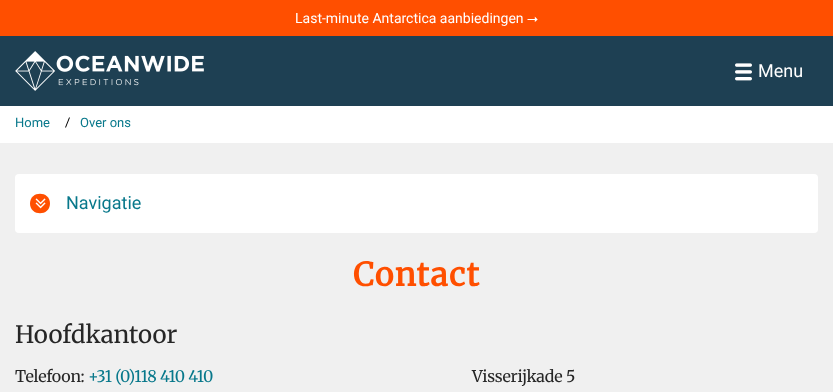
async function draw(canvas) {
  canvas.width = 833;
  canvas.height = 392;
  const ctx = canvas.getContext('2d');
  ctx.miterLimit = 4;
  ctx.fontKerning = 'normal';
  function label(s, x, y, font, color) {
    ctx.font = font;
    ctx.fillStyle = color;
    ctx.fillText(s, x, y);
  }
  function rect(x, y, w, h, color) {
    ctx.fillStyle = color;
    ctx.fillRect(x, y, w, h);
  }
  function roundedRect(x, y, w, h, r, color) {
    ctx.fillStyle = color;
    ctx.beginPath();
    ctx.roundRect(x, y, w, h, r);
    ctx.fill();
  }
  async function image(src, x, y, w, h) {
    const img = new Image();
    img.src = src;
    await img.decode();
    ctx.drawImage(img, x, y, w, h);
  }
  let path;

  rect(0, 0, 833, 392, '#fff');
  rect(0, 0, 833, 36, '#ff4f00');
  label('Last-minute Antarctica aanbiedingen', 295, 23, '14px Roboto', '#fff');
  label('⭢', 527, 23, '14px FreeSans', '#fff');
  rect(0, 36, 833, 70, '#1e4053');
  await image('assets/img1.png', 15, 51, 189, 40);
  await image('assets/img2.png', 735, 63, 17, 18);
  label('Menu', 758, 77, '18px Roboto', '#fff');
  label('Home', 15, 127, '13px Roboto', '#08788b');
  ctx.fillStyle = '#000';
  path = new Path2D('M70 117.5L66 127.5H65L69 117.5Z');
  ctx.fill(path);
  label('Over ons', 80, 127, '13px Roboto', '#08788b');
  rect(0, 143, 833, 249, '#f0f0f0');
  roundedRect(15, 174, 803, 59, 4, '#fff');
  ctx.fillStyle = '#ff4f00';
  path = new Path2D('M50 203.5C50 216.5 30 216.5 30 203.5C30 190.5 50 190.5 50 203.5Z');
  ctx.fill(path);
  await image('assets/img3.png', 35, 198, 11, 11);
  label('Navigatie', 66, 209, '18px Roboto', '#08788b');
  ctx.letterSpacing = '1.25px';
  label('Contact', 353, 286, 'bold 32px Merriweather', '#ff4f00');
  ctx.letterSpacing = '0px';
  label('Hoofdkantoor', 15, 343, '24px Merriweather', '#262626');
  ctx.letterSpacing = '-0.25px';
  label('Telefoon:', 15, 382, '16px Merriweather', '#262626');
  label('+31 (0)118 410 410', 88, 382, '16px Merriweather', '#08788b');
  label('Visserijkade 5', 472, 382, '16px Merriweather', '#262626');
}

draw(document.querySelector('canvas'));
